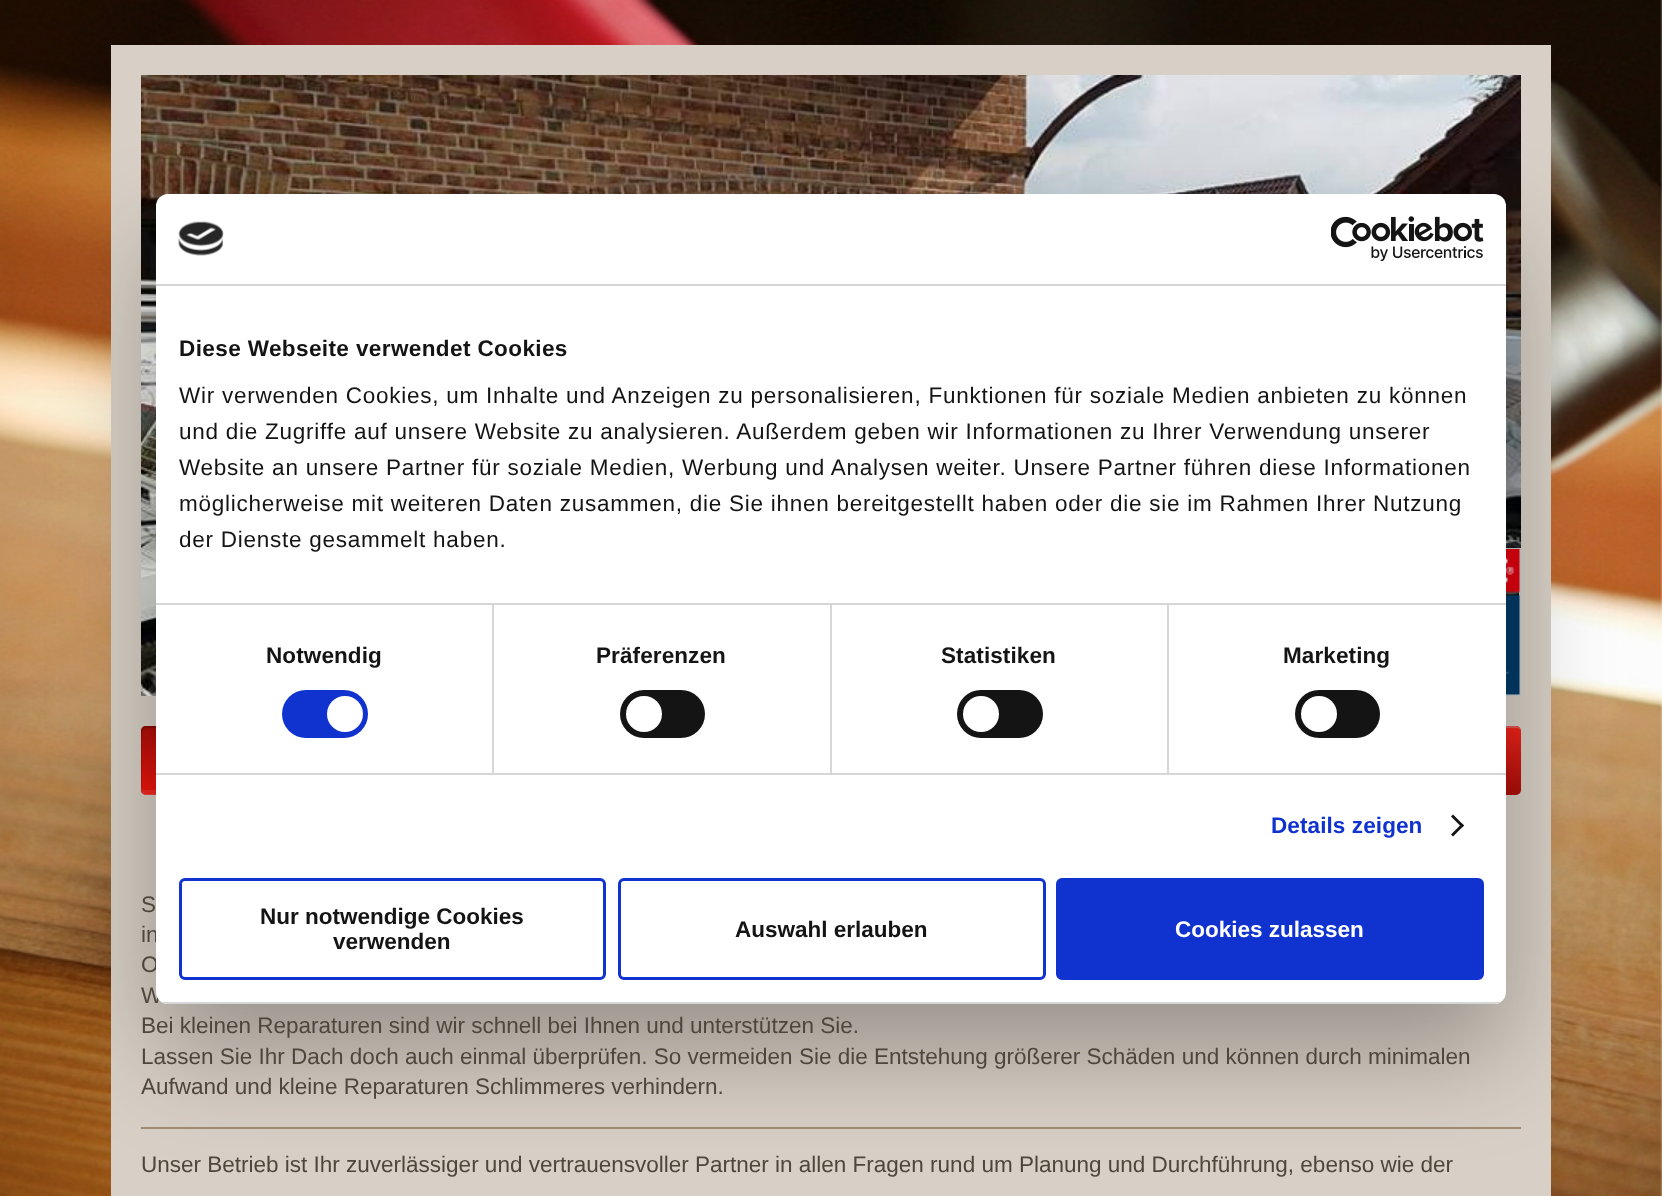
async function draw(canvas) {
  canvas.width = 1662;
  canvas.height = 1196;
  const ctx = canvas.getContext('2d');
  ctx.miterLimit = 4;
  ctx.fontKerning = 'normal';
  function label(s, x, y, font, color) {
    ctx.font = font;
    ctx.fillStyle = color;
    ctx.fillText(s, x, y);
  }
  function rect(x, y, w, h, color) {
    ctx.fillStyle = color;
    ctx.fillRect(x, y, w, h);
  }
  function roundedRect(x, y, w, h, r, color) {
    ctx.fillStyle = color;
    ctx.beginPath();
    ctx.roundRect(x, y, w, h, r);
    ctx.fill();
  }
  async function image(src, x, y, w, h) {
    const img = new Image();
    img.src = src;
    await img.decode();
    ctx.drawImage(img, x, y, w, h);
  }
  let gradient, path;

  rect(0, 0, 1662, 1196, '#fff');
  await image('assets/img1.png', 0, 0, 1662, 1196);
  rect(111, 45, 1440, 1151, '#d8d0c6');
  await image('assets/img4.png', 141, 75, 1380, 621);
  ctx.strokeStyle = '#ccc';
  ctx.lineWidth = 2;
  ctx.strokeRect(1390, 549, 130, 146);
  await image('assets/img5.png', 1506, 549, 14, 146);
  gradient = ctx.createLinearGradient(141, 726, 141, 795);
  gradient.addColorStop(0, '#f4241b');
  gradient.addColorStop(1, '#ac0e08');
  ctx.fillStyle = gradient;
  ctx.beginPath();
  ctx.roundRect(141, 726, 1380, 69, 5);
  ctx.fill();
  ctx.fillStyle = '#d3120a';
  path = new Path2D('M146 728H1516C1519 728 1521 730 1521 732C1521 729 1519 726 1516 726H146C143 726 141 729 141 732C141 730 143 728 146 728Z');
  ctx.fill(path);
  ctx.fillStyle = '#ffffff4d';
  path = new Path2D('M146 728H1516C1519 728 1521 730 1521 732C1521 729 1519 726 1516 726H146C143 726 141 729 141 732C141 730 143 728 146 728Z');
  ctx.fill(path);
  gradient = ctx.createLinearGradient(141, 795, 141, 726);
  gradient.addColorStop(0, '#f4160d');
  gradient.addColorStop(1, '#ac0e08');
  ctx.fillStyle = gradient;
  ctx.beginPath();
  ctx.roundRect(141, 726, 150, 69, 5);
  ctx.fill();
  ctx.fillStyle = '#00000026';
  path = new Path2D('M147 728H288L291 729C290 727 288 726 286 726H146C143 726 141 728 141 731V790C141 792 142 793 143 794L142 792V731C143 729 145 728 147 728Z');
  ctx.fill(path);
  ctx.fillStyle = '#0000000a';
  path = new Path2D('M146 730H286C289 730 291 733 291 735V731C291 728 289 726 286 726H146C143 726 141 728 141 731V735C141 733 143 730 146 730Z');
  ctx.fill(path);
  ctx.fillStyle = '#ffffff14';
  path = new Path2D('M141 786V790C141 793 143 795 146 795H286C289 795 291 793 291 790V786C291 788 289 790 286 790H146C143 790 141 788 141 786Z');
  ctx.fill(path);
  ctx.fillStyle = '#ffffff1a';
  path = new Path2D('M141 789V790C141 793 143 795 146 795H286C289 795 291 793 291 790V789C291 791 289 794 286 794H146C143 794 141 791 141 789Z');
  ctx.fill(path);
  rect(141, 1127, 1380, 2, '#a08d74');
  ctx.fillStyle = '#0000004d';
  ctx.filter = 'blur(51px)';
  ctx.beginPath();
  ctx.roundRect(156, 242, 1350, 810, 12);
  ctx.fill();
  ctx.filter = 'none';
  label('in', 141, 942, '22.5px Liberation Sans', '#4f463b');
  label('O', 141, 972, '22.5px Liberation Sans', '#4f463b');
  label('W', 141, 1003, '22.5px Liberation Sans', '#4f463b');
  roundedRect(156, 194, 1350, 810, 12, '#fff');
  rect(156, 284, 1350, 2, '#d6d6d6');
  await image('assets/img2.png', 178, 221, 46, 35);
  await image('assets/img3.png', 1331, 216, 153, 45);
  rect(156, 603, 1350, 2, '#d6d6d6');
  ctx.letterSpacing = '0.4px';
  label('Diese Webseite verwendet Cookies', 179, 356, 'bold 22.5px Liberation Sans', '#141414');
  ctx.letterSpacing = '0.75px';
  label('Wir verwenden Cookies, um Inhalte und Anzeigen zu personalisieren, Funktionen für soziale Medien anbieten zu können', 179, 403, '22.5px Liberation Sans', '#141414');
  label('und die Zugriffe auf unsere Website zu analysieren. Außerdem geben wir Informationen zu Ihrer Verwendung unserer', 179, 439, '22.5px Liberation Sans', '#141414');
  label('Website an unsere Partner für soziale Medien, Werbung und Analysen weiter. Unsere Partner führen diese Informationen', 179, 475, '22.5px Liberation Sans', '#141414');
  label('möglicherweise mit weiteren Daten zusammen, die Sie ihnen bereitgestellt haben oder die sie im Rahmen Ihrer Nutzung', 179, 511, '22.5px Liberation Sans', '#141414');
  label('der Dienste gesammelt haben.', 179, 547, '22.5px Liberation Sans', '#141414');
  rect(156, 773, 1350, 2, '#d6d6d6');
  rect(492, 605, 2, 168, '#d6d6d6');
  ctx.letterSpacing = '0.1px';
  label('Notwendig', 266, 663, 'bold 22.5px Liberation Sans', '#141414');
  roundedRect(282, 690, 86, 48, 24, '#1032cf');
  ctx.fillStyle = '#fff';
  ctx.beginPath();
  ctx.arc(345, 714, 18, 0, 2 * Math.PI);
  ctx.fill();
  rect(830, 605, 2, 168, '#d6d6d6');
  label('Präferenzen', 596, 663, 'bold 22.5px Liberation Sans', '#141414');
  roundedRect(620, 690, 85, 48, 24, '#141414');
  ctx.fillStyle = '#fff';
  ctx.beginPath();
  ctx.arc(644, 714, 18, 0, 2 * Math.PI);
  ctx.fill();
  rect(1167, 605, 2, 168, '#d6d6d6');
  label('Statistiken', 941, 663, 'bold 22.5px Liberation Sans', '#141414');
  roundedRect(957, 690, 86, 48, 24, '#141414');
  ctx.fillStyle = '#fff';
  ctx.beginPath();
  ctx.arc(981, 714, 18, 0, 2 * Math.PI);
  ctx.fill();
  label('Marketing', 1283, 663, 'bold 22.5px Liberation Sans', '#141414');
  roundedRect(1295, 690, 85, 48, 24, '#141414');
  ctx.fillStyle = '#fff';
  ctx.beginPath();
  ctx.arc(1319, 714, 18, 0, 2 * Math.PI);
  ctx.fill();
  label('Details zeigen', 1271, 833, 'bold 22.5px Liberation Sans', '#1032cf');
  ctx.fillStyle = '#141414';
  path = new Path2D('M1453 814.5L1464 825.5L1462 827.5L1451 816.5Z');
  ctx.fill(path);
  path = new Path2D('M1462 823.5L1464 825.5L1453 836.5L1451 834.5Z');
  ctx.fill(path);
  ctx.save();
  ctx.beginPath();
  ctx.roundRect(156, 194, 1350, 810, 12);
  ctx.clip();
  rect(156, 1002, 1350, 2, '#d6d6d6');
  ctx.restore();
  ctx.beginPath();
  ctx.roundRect(180.5, 879.5, 424, 99, 4.5);
  ctx.strokeStyle = '#1032cf';
  ctx.lineWidth = 3;
  ctx.stroke();
  ctx.letterSpacing = '0px';
  label('Nur notwendige Cookies', 260, 924, 'bold 22.5px Liberation Sans', '#141414');
  label('verwenden', 333, 949, 'bold 22.5px Liberation Sans', '#141414');
  ctx.beginPath();
  ctx.roundRect(619.5, 879.5, 425, 99, 4.5);
  ctx.stroke();
  label('Auswahl erlauben', 735, 937, 'bold 22.5px Liberation Sans', '#141414');
  ctx.fillStyle = '#1032cf';
  ctx.beginPath();
  ctx.roundRect(1057.5, 879.5, 425, 99, 4.5);
  ctx.fill();
  ctx.stroke();
  label('Cookies zulassen', 1175, 937, 'bold 22.5px Liberation Sans', '#fff');
  label('S', 141, 912, '22.5px Liberation Sans', '#4f463b');
  label('Bei kleinen Reparaturen sind wir schnell bei Ihnen und unterstützen Sie.', 141, 1033, '22.5px Liberation Sans', '#4f463b');
  label('Lassen Sie Ihr Dach doch auch einmal überprüfen. So vermeiden Sie die Entstehung größerer Schäden und können durch minimalen', 141, 1064, '22.5px Liberation Sans', '#4f463b');
  label('Aufwand und kleine Reparaturen Schlimmeres verhindern.', 141, 1094, '22.5px Liberation Sans', '#4f463b');
  label('Unser Betrieb ist Ihr zuverlässiger und vertrauensvoller Partner in allen Fragen rund um Planung und Durchführung, ebenso wie der', 141, 1172, '22.5px Liberation Sans', '#4f463b');
}

draw(document.querySelector('canvas'));
